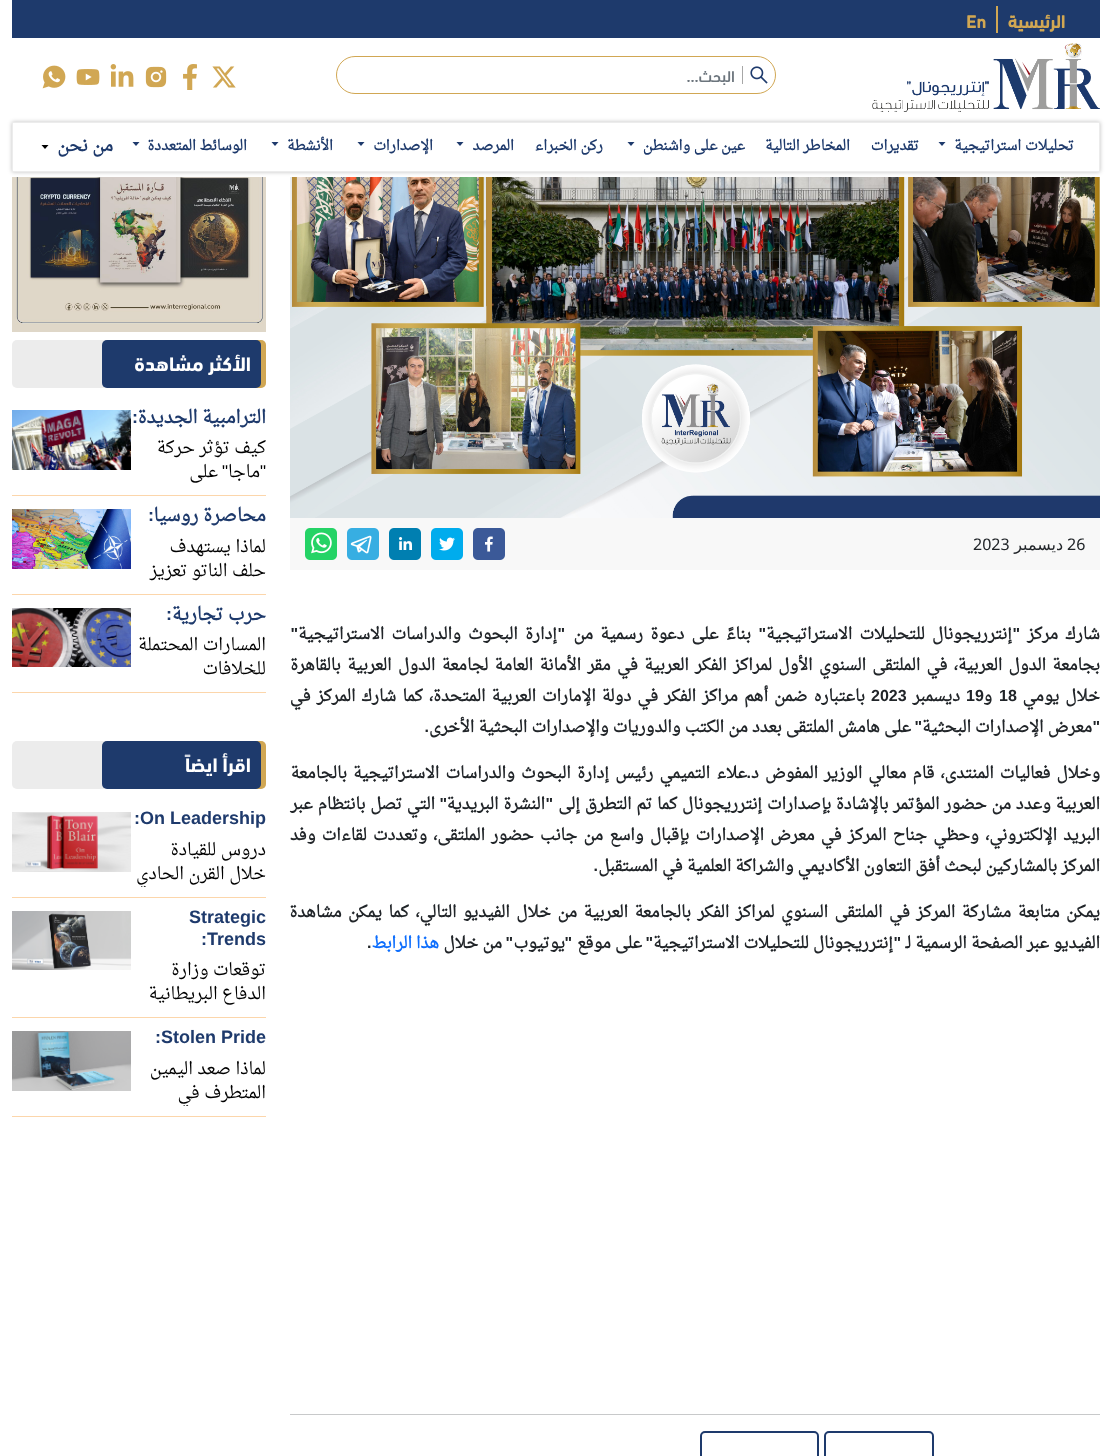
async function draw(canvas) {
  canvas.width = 1112;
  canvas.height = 1456;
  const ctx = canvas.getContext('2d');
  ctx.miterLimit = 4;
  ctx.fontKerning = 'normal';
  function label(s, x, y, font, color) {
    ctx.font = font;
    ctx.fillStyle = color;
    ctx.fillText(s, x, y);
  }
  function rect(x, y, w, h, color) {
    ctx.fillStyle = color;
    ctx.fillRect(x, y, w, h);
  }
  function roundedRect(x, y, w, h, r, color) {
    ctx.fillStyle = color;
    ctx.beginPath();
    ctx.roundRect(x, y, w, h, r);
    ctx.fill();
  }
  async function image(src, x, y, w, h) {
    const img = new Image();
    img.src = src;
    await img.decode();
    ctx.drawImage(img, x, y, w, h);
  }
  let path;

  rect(0, 0, 1112, 1456, '#fff');
  rect(12, 0, 1088, 38, '#1e3a6c');
  rect(996, 6, 2, 27, '#d1a753');
  ctx.direction = 'rtl';
  label('الرئيسية', 1065, 28, 'bold 18px "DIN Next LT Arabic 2"', '#d1a753');
  ctx.direction = 'ltr';
  label('En', 966, 28, 'bold 18px "DIN Next LT Arabic 2"', '#d1a753');
  await image('assets/img1.png', 872, 43, 228, 69);
  ctx.beginPath();
  ctx.roundRect(336.5, 56.5, 439, 37, 18.5);
  ctx.strokeStyle = '#d1a753';
  ctx.stroke();
  await image('assets/img2.png', 750, 66, 18, 18);
  rect(742, 66, 1, 18, '#a7a7a7');
  ctx.direction = 'rtl';
  label('البحث...', 735, 82, '500 16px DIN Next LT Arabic', '#6c757d');
  await image('assets/img3.png', 212, 66, 24, 22);
  await image('assets/img4.png', 183, 64, 14, 26);
  await image('assets/img5.png', 145, 66, 22, 22);
  await image('assets/img6.png', 110, 64, 24, 23);
  await image('assets/img7.png', 76, 69, 24, 16);
  await image('assets/img8.png', 42, 65, 24, 24);
  await image('assets/img9.png', 290, 177, 810, 341);
  await image('assets/img15.png', 12, 177, 254, 155);
  ctx.save();
  path = new Path2D('M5 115H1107V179H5ZM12 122H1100V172H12Z');
  ctx.clip(path, 'evenodd');
  ctx.fillStyle = '#00000040';
  ctx.filter = 'blur(2px)';
  ctx.beginPath();
  ctx.rect(12, 122, 1088, 50);
  ctx.fill();
  ctx.filter = 'none';
  ctx.restore();
  ctx.strokeStyle = '#ececec';
  ctx.strokeRect(12.5, 122.5, 1087, 49);
  label('تحليلات استراتيجية', 1074, 150, 'bold 14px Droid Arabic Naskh', '#1e3a6c');
  path = new Path2D('M938.5 142L942 146L945.5 142Z');
  ctx.fill(path);
  label('تقديرات', 919, 150, 'bold 14px Droid Arabic Naskh', '#1e3a6c');
  label('المخاطر التالية', 850, 150, 'bold 14px Droid Arabic Naskh', '#1e3a6c');
  label('عين على واشنطن', 745, 150, 'bold 14px Droid Arabic Naskh', '#1e3a6c');
  path = new Path2D('M627.5 142L631 146L634.5 142Z');
  ctx.fill(path);
  label('ركن الخبراء', 603, 150, 'bold 14px Droid Arabic Naskh', '#1e3a6c');
  label('المرصد', 514, 150, 'bold 14px Droid Arabic Naskh', '#1e3a6c');
  path = new Path2D('M456.5 142L460 146L463.5 142Z');
  ctx.fill(path);
  label('الإصدارات', 433, 150, 'bold 14px Droid Arabic Naskh', '#1e3a6c');
  path = new Path2D('M357.5 142L361 146L364.5 142Z');
  ctx.fill(path);
  label('الأنشطة', 333, 150, 'bold 14px Droid Arabic Naskh', '#1e3a6c');
  path = new Path2D('M271.5 142L275 146L278.5 142Z');
  ctx.fill(path);
  label('الوسائط المتعددة', 247, 150, 'bold 14px Droid Arabic Naskh', '#1e3a6c');
  path = new Path2D('M132.5 142L136 146L139.5 142Z');
  ctx.fill(path);
  label('من نحن', 113, 151, 'bold 17px Droid Arabic Naskh', '#1e3a6c');
  ctx.fillStyle = '#000';
  path = new Path2D('M41.5 145L45 149L48.5 145Z');
  ctx.fill(path);
  rect(290, 518, 810, 52, '#f8f8f8');
  ctx.direction = 'ltr';
  label('26', 1067, 550, '16px Noto Sans', '#212529');
  ctx.direction = 'rtl';
  label('ديسمبر', 1063, 550, '16px DejaVu Sans', '#212529');
  ctx.direction = 'ltr';
  label('2023', 973, 550, '16px Noto Sans', '#212529');
  await image('assets/img10.png', 473, 528, 32, 32);
  await image('assets/img11.png', 431, 528, 32, 32);
  await image('assets/img12.png', 389, 528, 32, 32);
  await image('assets/img13.png', 347, 528, 32, 32);
  await image('assets/img14.png', 305, 528, 32, 32);
  ctx.wordSpacing = '3px';
  ctx.direction = 'rtl';
  label('شارك مركز', 1100, 639, 'bold 16px Droid Arabic Naskh', '#212529');
  ctx.wordSpacing = '0px';
  label('"', 1020, 639, 'bold 16px Liberation Sans', '#212529');
  ctx.wordSpacing = '3px';
  label('إنترريجونال للتحليلات الاستراتيجية', 1012, 639, 'bold 16px Droid Arabic Naskh', '#212529');
  ctx.wordSpacing = '0px';
  label('"', 766, 639, 'bold 16px Liberation Sans', '#212529');
  ctx.wordSpacing = '3px';
  label('بناءً على دعوة رسمية من', 751, 639, 'bold 16px Droid Arabic Naskh', '#212529');
  ctx.wordSpacing = '0px';
  label('"', 565, 639, 'bold 16px Liberation Sans', '#212529');
  ctx.wordSpacing = '3px';
  label('إدارة البحوث والدراسات الاستراتيجية', 557, 639, 'bold 16px Droid Arabic Naskh', '#212529');
  ctx.wordSpacing = '0px';
  label('"', 298, 639, 'bold 16px Liberation Sans', '#212529');
  ctx.wordSpacing = '2.25px';
  label('بجامعة الدول العربية، في الملتقى السنوي الأول لمراكز الفكر العربية في مقر الأمانة العامة لجامعة الدول العربية بالقاهرة', 1100, 670, 'bold 16px Droid Arabic Naskh', '#212529');
  ctx.wordSpacing = '2px';
  label('خلال يومي', 1100, 701, 'bold 16px Droid Arabic Naskh', '#212529');
  ctx.wordSpacing = '0px';
  ctx.direction = 'ltr';
  label('18', 999, 701, 'bold 16px Liberation Sans', '#212529');
  ctx.direction = 'rtl';
  label('و', 992, 701, 'bold 16px Droid Arabic Naskh', '#212529');
  ctx.direction = 'ltr';
  label('19', 966, 701, 'bold 16px Liberation Sans', '#212529');
  ctx.direction = 'rtl';
  label('ديسمبر', 960, 701, 'bold 16px Droid Arabic Naskh', '#212529');
  ctx.direction = 'ltr';
  label('2023', 871, 701, 'bold 16px Liberation Sans', '#212529');
  ctx.wordSpacing = '2px';
  ctx.direction = 'rtl';
  label('باعتباره ضمن أهم مراكز الفكر في دولة الإمارات العربية المتحدة، كما شارك المركز في', 865, 701, 'bold 16px Droid Arabic Naskh', '#212529');
  ctx.wordSpacing = '0px';
  label('"', 1100, 732, 'bold 16px Liberation Sans', '#212529');
  label('معرض الإصدارات البحثية', 1092, 732, 'bold 16px Droid Arabic Naskh', '#212529');
  label('"', 922, 732, 'bold 16px Liberation Sans', '#212529');
  label('على هامش الملتقى بعدد من الكتب والدوريات والإصدارات البحثية الأخرى', 911, 732, 'bold 16px Droid Arabic Naskh', '#212529');
  label('.', 429, 732, 'bold 16px Liberation Sans', '#212529');
  ctx.wordSpacing = '2px';
  label('وخلال فعاليات المنتدى، قام معالي الوزير المفوض د', 1100, 778, 'bold 16px Droid Arabic Naskh', '#212529');
  ctx.wordSpacing = '0px';
  label('.', 751, 778, 'bold 16px Liberation Sans', '#212529');
  ctx.wordSpacing = '2px';
  label('علاء التميمي رئيس إدارة البحوث والدراسات الاستراتيجية بالجامعة', 747, 778, 'bold 16px Droid Arabic Naskh', '#212529');
  ctx.wordSpacing = '0.6px';
  label('العربية وعدد من حضور المؤتمر بالإشادة بإصدارات إنترريجونال كما تم التطرق إلى', 1100, 809, 'bold 16px Droid Arabic Naskh', '#212529');
  ctx.wordSpacing = '0px';
  label('"', 553, 809, 'bold 16px Liberation Sans', '#212529');
  ctx.wordSpacing = '0.6px';
  label('النشرة البريدية', 545, 809, 'bold 16px Droid Arabic Naskh', '#212529');
  ctx.wordSpacing = '0px';
  label('"', 447, 809, 'bold 16px Liberation Sans', '#212529');
  ctx.wordSpacing = '0.6px';
  label('التي تصل بانتظام عبر', 435, 809, 'bold 16px Droid Arabic Naskh', '#212529');
  ctx.wordSpacing = '2.1px';
  label('البريد الإلكتروني، وحظي جناح المركز في معرض الإصدارات بإقبال واسع من جانب حضور الملتقى، وتعددت لقاءات وفد', 1100, 840, 'bold 16px Droid Arabic Naskh', '#212529');
  ctx.wordSpacing = '0px';
  label('المركز بالمشاركين لبحث أفق التعاون الأكاديمي والشراكة العلمية في المستقبل', 1100, 871, 'bold 16px Droid Arabic Naskh', '#212529');
  label('.', 598, 871, 'bold 16px Liberation Sans', '#212529');
  ctx.wordSpacing = '2.4px';
  label('يمكن متابعة مشاركة المركز في الملتقى السنوي لمراكز الفكر بالجامعة العربية من خلال الفيديو التالي، كما يمكن مشاهدة', 1100, 917, 'bold 16px Droid Arabic Naskh', '#212529');
  ctx.wordSpacing = '0px';
  label('الفيديو عبر الصفحة الرسمية لـ', 1100, 948, 'bold 16px Droid Arabic Naskh', '#212529');
  label('"', 901, 948, 'bold 16px Liberation Sans', '#212529');
  label('إنترريجونال للتحليلات الاستراتيجية', 893, 948, 'bold 16px Droid Arabic Naskh', '#212529');
  label('"', 653, 948, 'bold 16px Liberation Sans', '#212529');
  label('على موقع', 642, 948, 'bold 16px Droid Arabic Naskh', '#212529');
  label('"', 572, 948, 'bold 16px Liberation Sans', '#212529');
  label('يوتيوب', 565, 948, 'bold 16px Droid Arabic Naskh', '#212529');
  label('"', 513, 948, 'bold 16px Liberation Sans', '#212529');
  label('من خلال', 502, 948, 'bold 16px Droid Arabic Naskh', '#212529');
  label('هذا الرابط', 439, 948, 'bold 16px Droid Arabic Naskh', '#0d6efd');
  ctx.direction = 'ltr';
  label('.', 367, 948, 'bold 16px Liberation Sans', '#212529');
  rect(290, 1414, 810, 1, '#c8c9ca');
  ctx.beginPath();
  ctx.roundRect(825, 1432, 108, 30, 4);
  ctx.strokeStyle = '#1e3a6c';
  ctx.lineWidth = 2;
  ctx.stroke();
  ctx.beginPath();
  ctx.roundRect(701, 1432, 117, 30, 4);
  ctx.stroke();
  roundedRect(12, 340, 254, 48, 5, '#ececec');
  ctx.fillStyle = '#d1a753';
  ctx.beginPath();
  ctx.roundRect(221, 340, 45, 48, [0, 5, 5, 0]);
  ctx.fill();
  roundedRect(102, 340, 159, 48, 5, '#1e3a6c');
  ctx.direction = 'rtl';
  label('الأكثر مشاهدة', 251, 371, 'bold 20px DIN Next LT Arabic', '#fff');
  rect(12, 495, 254, 1, '#fcd6ab');
  label('الترامبية الجديدة', 266, 423, 'bold 18px Droid Arabic Naskh', '#1e3a6c');
  label(':', 138, 423, 'bold 18px Liberation Sans', '#1e3a6c');
  label('كيف تؤثر حركة', 266, 453, '17px Droid Arabic Naskh', '#000');
  label('"', 266, 477, '17px Liberation Sans', '#000');
  label('ماجا', 260, 477, '17px Droid Arabic Naskh', '#000');
  label('"', 228, 477, '17px Liberation Sans', '#000');
  label('على', 218, 477, '17px Droid Arabic Naskh', '#000');
  await image('assets/img16.png', 12, 410, 119, 60);
  rect(12, 594, 254, 1, '#fcd6ab');
  label('محاصرة روسيا', 266, 521, 'bold 18px Droid Arabic Naskh', '#1e3a6c');
  label(':', 154, 521, 'bold 18px Liberation Sans', '#1e3a6c');
  label('لماذا يستهدف', 266, 552, '17px Droid Arabic Naskh', '#000');
  label('حلف الناتو تعزيز', 266, 576, '17px Droid Arabic Naskh', '#000');
  await image('assets/img17.png', 12, 509, 119, 60);
  rect(12, 692, 254, 1, '#fcd6ab');
  label('حرب تجارية', 266, 620, 'bold 18px Droid Arabic Naskh', '#1e3a6c');
  label(':', 172, 620, 'bold 18px Liberation Sans', '#1e3a6c');
  label('المسارات المحتملة', 266, 650, '17px Droid Arabic Naskh', '#000');
  label('للخلافات', 266, 674, '17px Droid Arabic Naskh', '#000');
  await image('assets/img18.png', 12, 608, 119, 59);
  roundedRect(12, 741, 254, 48, 5, '#ececec');
  ctx.fillStyle = '#d1a753';
  ctx.beginPath();
  ctx.roundRect(221, 741, 45, 48, [0, 5, 5, 0]);
  ctx.fill();
  roundedRect(102, 741, 159, 48, 5, '#1e3a6c');
  label('اقرأ ايضاً', 251, 772, 'bold 20px DIN Next LT Arabic', '#fff');
  rect(12, 897, 254, 1, '#fcd6ab');
  ctx.direction = 'ltr';
  label('On Leadership', 140, 824, 'bold 18px Liberation Sans', '#1e3a6c');
  label(':', 134, 824, 'bold 18px Liberation Sans', '#1e3a6c');
  ctx.direction = 'rtl';
  label('دروس للقيادة', 266, 855, '17px Droid Arabic Naskh', '#000');
  ctx.save();
  ctx.beginPath();
  ctx.rect(131, 839, 135, 48);
  ctx.clip();
  label('خلال القرن الحادي', 266, 879, '17px Droid Arabic Naskh', '#000');
  ctx.restore();
  await image('assets/img19.png', 12, 812, 119, 60);
  rect(12, 1017, 254, 1, '#fcd6ab');
  ctx.direction = 'ltr';
  label('Strategic', 189, 923, 'bold 18px Liberation Sans', '#1e3a6c');
  label(':Trends', 201, 945, 'bold 18px Liberation Sans', '#1e3a6c');
  ctx.direction = 'rtl';
  label('توقعات وزارة', 266, 975, '17px Droid Arabic Naskh', '#000');
  label('الدفاع البريطانية', 266, 999, '17px Droid Arabic Naskh', '#000');
  await image('assets/img20.png', 12, 911, 119, 59);
  rect(12, 1116, 254, 1, '#fcd6ab');
  ctx.direction = 'ltr';
  label('Stolen Pride', 161, 1043, 'bold 18px Liberation Sans', '#1e3a6c');
  label(':', 155, 1043, 'bold 18px Liberation Sans', '#1e3a6c');
  ctx.direction = 'rtl';
  label('لماذا صعد اليمين', 266, 1074, '17px Droid Arabic Naskh', '#000');
  ctx.save();
  ctx.beginPath();
  ctx.rect(131, 1058, 135, 48);
  ctx.clip();
  label('المتطرف في', 266, 1098, '17px Droid Arabic Naskh', '#000');
  ctx.restore();
  await image('assets/img21.png', 12, 1031, 119, 60);
}

draw(document.querySelector('canvas'));
